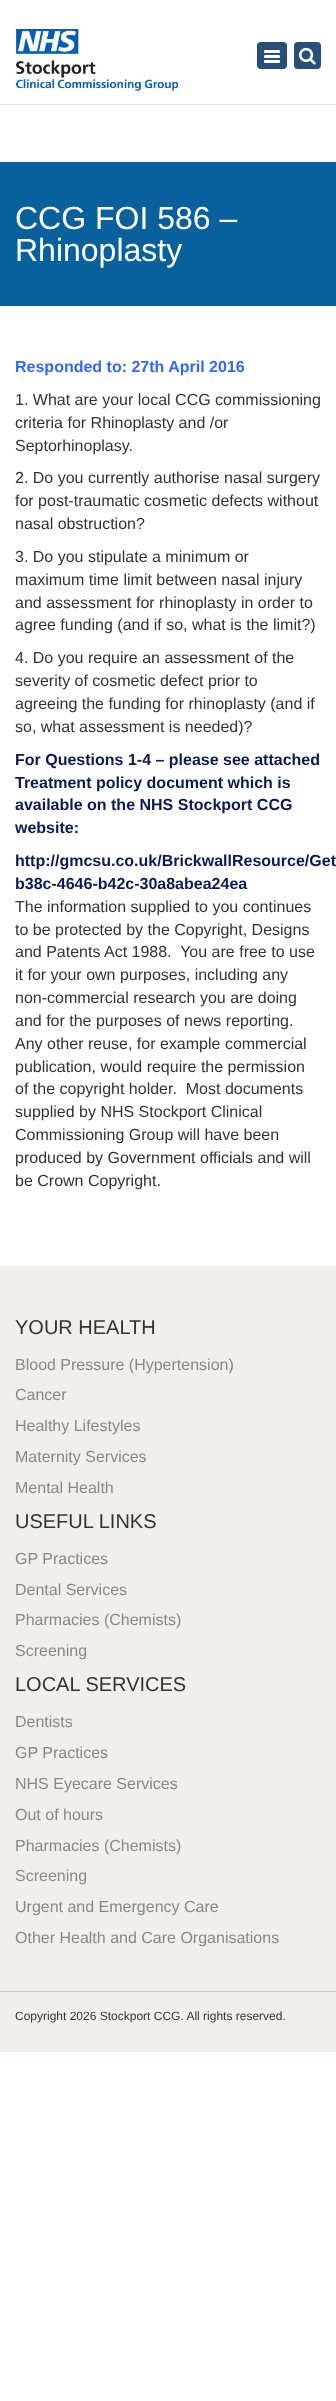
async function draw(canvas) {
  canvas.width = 336;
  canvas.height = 2401;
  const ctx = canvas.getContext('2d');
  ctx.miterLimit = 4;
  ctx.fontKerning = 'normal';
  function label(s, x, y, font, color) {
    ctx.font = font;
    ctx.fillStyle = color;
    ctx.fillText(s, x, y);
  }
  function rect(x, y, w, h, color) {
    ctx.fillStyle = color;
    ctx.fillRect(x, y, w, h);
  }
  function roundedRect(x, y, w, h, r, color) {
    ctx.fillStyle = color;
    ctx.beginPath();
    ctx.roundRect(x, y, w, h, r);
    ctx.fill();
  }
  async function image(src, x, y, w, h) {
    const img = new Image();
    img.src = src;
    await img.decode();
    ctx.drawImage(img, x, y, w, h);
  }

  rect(0, 0, 336, 2401, '#fff');
  await image('assets/img1.png', 15, 25, 165, 66);
  roundedRect(257, 42, 30, 27, 4, '#26507a');
  roundedRect(264, 50, 16, 3, 1, '#fff');
  roundedRect(264, 55, 16, 3, 1, '#fff');
  roundedRect(264, 60, 16, 3, 1, '#fff');
  roundedRect(294, 42, 27, 27, 4, '#26507a');
  await image('assets/img2.png', 299, 47, 17, 18);
  rect(0, 104, 336, 1, '#e5e5e5');
  rect(0, 162, 336, 144, '#08609d');
  label('CCG FOI 586 –', 15, 229, '32px Liberation Sans', '#fff');
  label('Rhinoplasty', 15, 261, '32px Liberation Sans', '#fff');
  label('Responded to: 27th April 2016', 15, 372, 'bold 16px Liberation Sans', '#36f');
  label('1. What are your local CCG commissioning', 15, 405, '16px Liberation Sans', '#333');
  label('criteria for Rhinoplasty and /or', 15, 428, '16px Liberation Sans', '#333');
  label('Septorhinoplasy.', 15, 451, '16px Liberation Sans', '#333');
  label('2. Do you currently authorise nasal surgery', 15, 483, '16px Liberation Sans', '#333');
  label('for post-traumatic cosmetic defects without', 15, 506, '16px Liberation Sans', '#333');
  label('nasal obstruction?', 15, 529, '16px Liberation Sans', '#333');
  label('3. Do you stipulate a minimum or', 15, 562, '16px Liberation Sans', '#333');
  label('maximum time limit between nasal injury', 15, 585, '16px Liberation Sans', '#333');
  label('and assessment for rhinoplasty in order to', 15, 608, '16px Liberation Sans', '#333');
  label('agree funding (and if so, what is the limit?)', 15, 630, '16px Liberation Sans', '#333');
  label('4. Do you require an assessment of the', 15, 663, '16px Liberation Sans', '#333');
  label('severity of cosmetic defect prior to', 15, 686, '16px Liberation Sans', '#333');
  label('agreeing the funding for rhinoplasty (and if', 15, 709, '16px Liberation Sans', '#333');
  label('so, what assessment is needed)?', 15, 732, '16px Liberation Sans', '#333');
  label('For Questions 1-4 – please see attached', 15, 765, 'bold 16px Liberation Sans', '#081b56');
  label('Treatment policy document which is', 15, 788, 'bold 16px Liberation Sans', '#081b56');
  label('available on the NHS Stockport CCG', 15, 810, 'bold 16px Liberation Sans', '#081b56');
  label('website:', 15, 833, 'bold 16px Liberation Sans', '#081b56');
  label('http://gmcsu.co.uk/BrickwallResource/Get', 15, 866, 'bold 16px Liberation Sans', '#081b56');
  label('b38c-4646-b42c-30a8abea24ea', 15, 889, 'bold 16px Liberation Sans', '#081b56');
  label('The information supplied to you continues', 15, 912, '16px Liberation Sans', '#333');
  label('to be protected by the Copyright, Designs', 15, 935, '16px Liberation Sans', '#333');
  label('and Patents Act 1988.  You are free to use', 15, 957, '16px Liberation Sans', '#333');
  label('it for your own purposes, including any', 15, 980, '16px Liberation Sans', '#333');
  label('non-commercial research you are doing', 15, 1003, '16px Liberation Sans', '#333');
  label('and for the purposes of news reporting.', 15, 1026, '16px Liberation Sans', '#333');
  label('Any other reuse, for example commercial', 15, 1049, '16px Liberation Sans', '#333');
  label('publication, would require the permission', 15, 1072, '16px Liberation Sans', '#333');
  label('of the copyright holder.  Most documents', 15, 1094, '16px Liberation Sans', '#333');
  label('supplied by NHS Stockport Clinical', 15, 1117, '16px Liberation Sans', '#333');
  label('Commissioning Group will have been', 15, 1140, '16px Liberation Sans', '#333');
  label('produced by Government officials and will', 15, 1163, '16px Liberation Sans', '#333');
  label('be Crown Copyright.', 15, 1186, '16px Liberation Sans', '#333');
  rect(0, 1266, 336, 786, '#f2eeed');
  label('YOUR HEALTH', 15, 1334, '20px Liberation Sans', '#333');
  label('Blood Pressure (Hypertension)', 15, 1370, '16px Liberation Sans', '#888');
  label('Cancer', 15, 1400, '16px Liberation Sans', '#888');
  label('Healthy Lifestyles', 15, 1431, '16px Liberation Sans', '#888');
  label('Maternity Services', 15, 1462, '16px Liberation Sans', '#888');
  label('Mental Health', 15, 1493, '16px Liberation Sans', '#888');
  label('USEFUL LINKS', 15, 1528, '20px Liberation Sans', '#333');
  label('GP Practices', 15, 1564, '16px Liberation Sans', '#888');
  label('Dental Services', 15, 1595, '16px Liberation Sans', '#888');
  label('Pharmacies (Chemists)', 15, 1625, '16px Liberation Sans', '#888');
  label('Screening', 15, 1656, '16px Liberation Sans', '#888');
  label('LOCAL SERVICES', 15, 1691, '20px Liberation Sans', '#333');
  label('Dentists', 15, 1727, '16px Liberation Sans', '#888');
  label('GP Practices', 15, 1758, '16px Liberation Sans', '#888');
  label('NHS Eyecare Services', 15, 1789, '16px Liberation Sans', '#888');
  label('Out of hours', 15, 1820, '16px Liberation Sans', '#888');
  label('Pharmacies (Chemists)', 15, 1851, '16px Liberation Sans', '#888');
  label('Screening', 15, 1881, '16px Liberation Sans', '#888');
  label('Urgent and Emergency Care', 15, 1912, '16px Liberation Sans', '#888');
  label('Other Health and Care Organisations', 15, 1943, '16px Liberation Sans', '#888');
  rect(0, 1991, 336, 1, '#c7c6c4');
  label('Copyright 2026 Stockport CCG. All rights reserved.', 15, 2020, '12px Liberation Sans', '#333');
}

draw(document.querySelector('canvas'));
